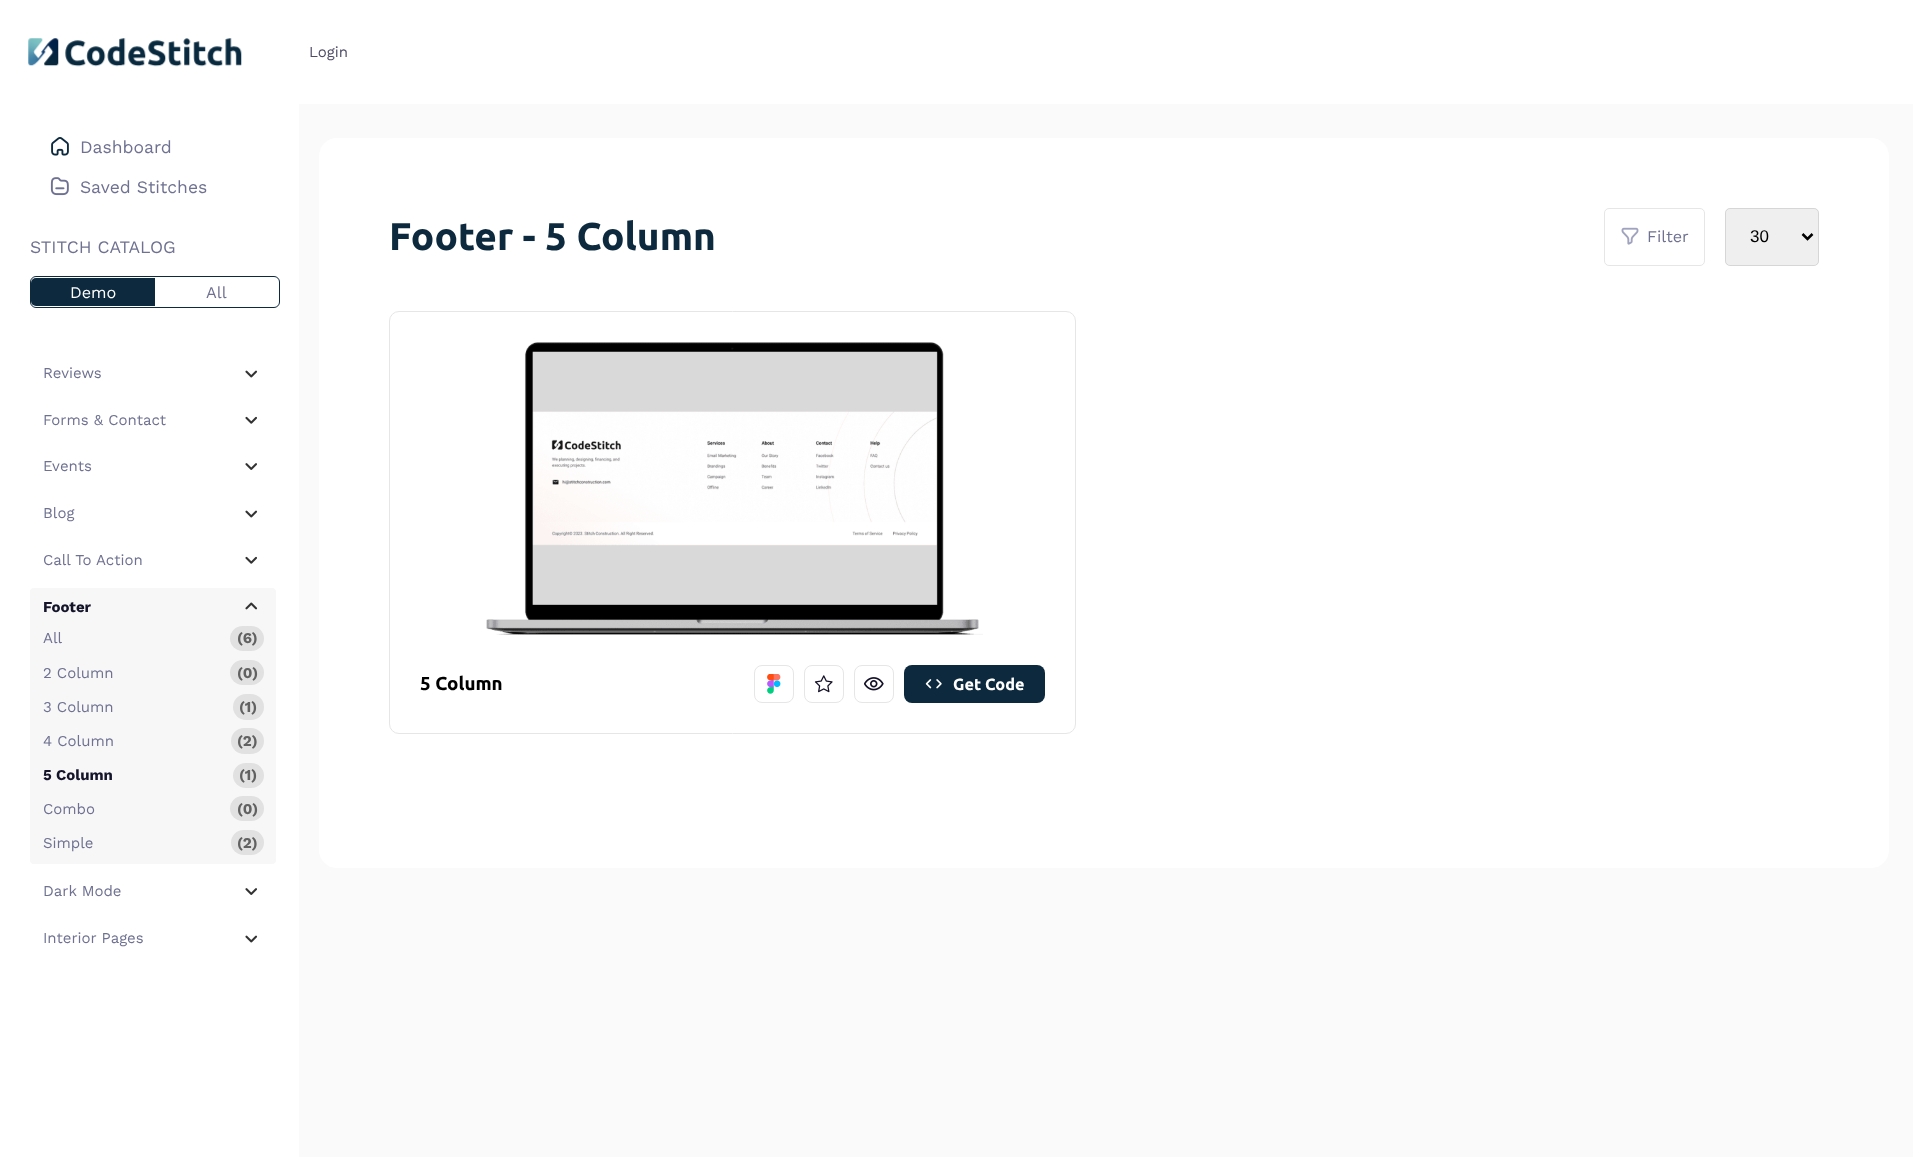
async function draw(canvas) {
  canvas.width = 1913;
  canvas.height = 1157;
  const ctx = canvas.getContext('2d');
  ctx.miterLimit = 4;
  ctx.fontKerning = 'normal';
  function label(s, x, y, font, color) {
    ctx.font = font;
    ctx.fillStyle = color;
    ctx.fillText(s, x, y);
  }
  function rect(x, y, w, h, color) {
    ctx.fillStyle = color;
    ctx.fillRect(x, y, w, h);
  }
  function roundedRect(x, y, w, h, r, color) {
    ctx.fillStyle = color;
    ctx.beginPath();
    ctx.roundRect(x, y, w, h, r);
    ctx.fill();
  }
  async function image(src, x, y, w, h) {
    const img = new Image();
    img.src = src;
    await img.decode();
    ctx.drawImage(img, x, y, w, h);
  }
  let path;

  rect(0, 0, 1913, 1157, '#fafafa');
  rect(0, 0, 1913, 104, '#fff');
  await image('assets/img1.png', 28, 38, 214, 29);
  label('Login', 309, 57, '15px Work Sans', '#4e4b66');
  rect(0, 104, 299, 1053, '#fff');
  await image('assets/img2.png', 51, 137, 18, 19);
  label('Dashboard', 80, 153, '17.5px Work Sans', '#6e7191');
  await image('assets/img3.png', 50, 177, 19, 19);
  label('Saved Stitches', 80, 193, '17.5px Work Sans', '#6e7191');
  label('STITCH CATALOG', 30, 253, '17.5px Work Sans', '#6e7191');
  ctx.fillStyle = '#0c293e';
  ctx.beginPath();
  ctx.roundRect(31, 278, 124, 28, [5, 0, 0, 5]);
  ctx.fill();
  ctx.beginPath();
  ctx.roundRect(30.5, 276.5, 249, 31, 5.5);
  ctx.strokeStyle = '#0c293e';
  ctx.stroke();
  label('All', 206, 298, '16.25px Work Sans', '#6e7191');
  label('Demo', 70, 298, '16.25px Work Sans', '#fff');
  label('Reviews', 43, 378, '15px Work Sans', '#6e7191');
  await image('assets/img4.png', 245, 370, 13, 8);
  label('Forms & Contact', 43, 425, '15px Work Sans', '#6e7191');
  await image('assets/img5.png', 245, 416, 12, 8);
  label('Events', 43, 471, '15px Work Sans', '#6e7191');
  await image('assets/img6.png', 245, 463, 12, 7);
  label('Blog', 43, 518, '15px Work Sans', '#6e7191');
  await image('assets/img4.png', 245, 510, 13, 8);
  label('Call To Action', 43, 565, '15px Work Sans', '#6e7191');
  await image('assets/img5.png', 245, 556, 12, 8);
  roundedRect(30, 588, 246, 276, 4, '#f7f7f7');
  label('Footer', 43, 612, 'bold 15px Work Sans', '#14142b');
  await image('assets/img7.png', 245, 602, 13, 8);
  label('All', 43, 643, '15px Work Sans', '#6e7191');
  roundedRect(230, 626, 34, 25, 12.5, '#e1e1e1');
  label('(6)', 237, 643, 'bold 15px Work Sans', '#616161');
  label('2 Column', 43, 678, '15px Work Sans', '#6e7191');
  roundedRect(230, 660, 34, 25, 12.5, '#e1e1e1');
  label('(0)', 237, 678, 'bold 15px Work Sans', '#616161');
  label('3 Column', 43, 712, '15px Work Sans', '#6e7191');
  roundedRect(233, 694, 31, 26, 13, '#e1e1e1');
  label('(1)', 239, 712, 'bold 15px Work Sans', '#616161');
  label('4 Column', 43, 746, '15px Work Sans', '#6e7191');
  roundedRect(231, 728, 33, 26, 13, '#e1e1e1');
  label('(2)', 237, 746, 'bold 15px Work Sans', '#616161');
  label('5 Column', 43, 780, 'bold 15px Work Sans', '#14142b');
  roundedRect(233, 763, 31, 25, 12.5, '#e1e1e1');
  label('(1)', 239, 780, 'bold 15px Work Sans', '#616161');
  label('Combo', 43, 814, '15px Work Sans', '#6e7191');
  roundedRect(230, 796, 34, 25, 12.5, '#e1e1e1');
  label('(0)', 237, 814, 'bold 15px Work Sans', '#616161');
  label('Simple', 43, 848, '15px Work Sans', '#6e7191');
  roundedRect(231, 830, 33, 25, 12.5, '#e1e1e1');
  label('(2)', 237, 848, 'bold 15px Work Sans', '#616161');
  label('Dark Mode', 43, 896, '15px Work Sans', '#6e7191');
  await image('assets/img6.png', 245, 888, 12, 7);
  label('Interior Pages', 43, 943, '15px Work Sans', '#6e7191');
  await image('assets/img4.png', 245, 935, 13, 8);
  roundedRect(319, 138, 1570, 730, 18, '#fff');
  label('Footer - 5 Column', 389, 250, 'bold 38.75px Ubuntu', '#0c293e');
  ctx.beginPath();
  ctx.roundRect(1604.5, 208.5, 100, 57, 4.5);
  ctx.strokeStyle = '#e6e6e6';
  ctx.stroke();
  await image('assets/img8.png', 1621, 227, 18, 18);
  label('Filter', 1647, 242, '16.25px Work Sans', '#6e7191');
  roundedRect(1725, 208, 94, 58, 5, '#efefef');
  ctx.beginPath();
  ctx.roundRect(1725.5, 208.5, 93, 57, 4.5);
  ctx.strokeStyle = '#0000001a';
  ctx.stroke();
  path = new Path2D('M1802.5 234L1807.5 239L1812.5 234');
  ctx.strokeStyle = '#000';
  ctx.lineWidth = 2.5;
  ctx.stroke(path);
  label('30', 1750, 242, '17px Liberation Sans', '#000');
  ctx.beginPath();
  ctx.roundRect(389.5, 311.5, 686, 422, 9.5);
  ctx.strokeStyle = '#e6e6e6';
  ctx.lineWidth = 1;
  ctx.stroke();
  await image('assets/img9.png', 486, 342, 497, 293);
  label('5 Column', 420, 690, 'bold 18.75px Ubuntu', '#000');
  ctx.beginPath();
  ctx.roundRect(754.5, 665.5, 39, 37, 7.5);
  ctx.stroke();
  await image('assets/img10.png', 767, 674, 14, 20);
  ctx.beginPath();
  ctx.roundRect(804.5, 665.5, 39, 37, 7.5);
  ctx.stroke();
  await image('assets/img11.png', 814, 675, 19, 18);
  ctx.beginPath();
  ctx.roundRect(854.5, 665.5, 39, 37, 7.5);
  ctx.stroke();
  await image('assets/img12.png', 864, 677, 20, 14);
  roundedRect(904, 665, 141, 38, 8, '#0c293e');
  await image('assets/img13.png', 925, 679, 17, 10);
  label('Get Code', 953, 690, 'bold 16.25px Ubuntu', '#fff');
}

draw(document.querySelector('canvas'));
